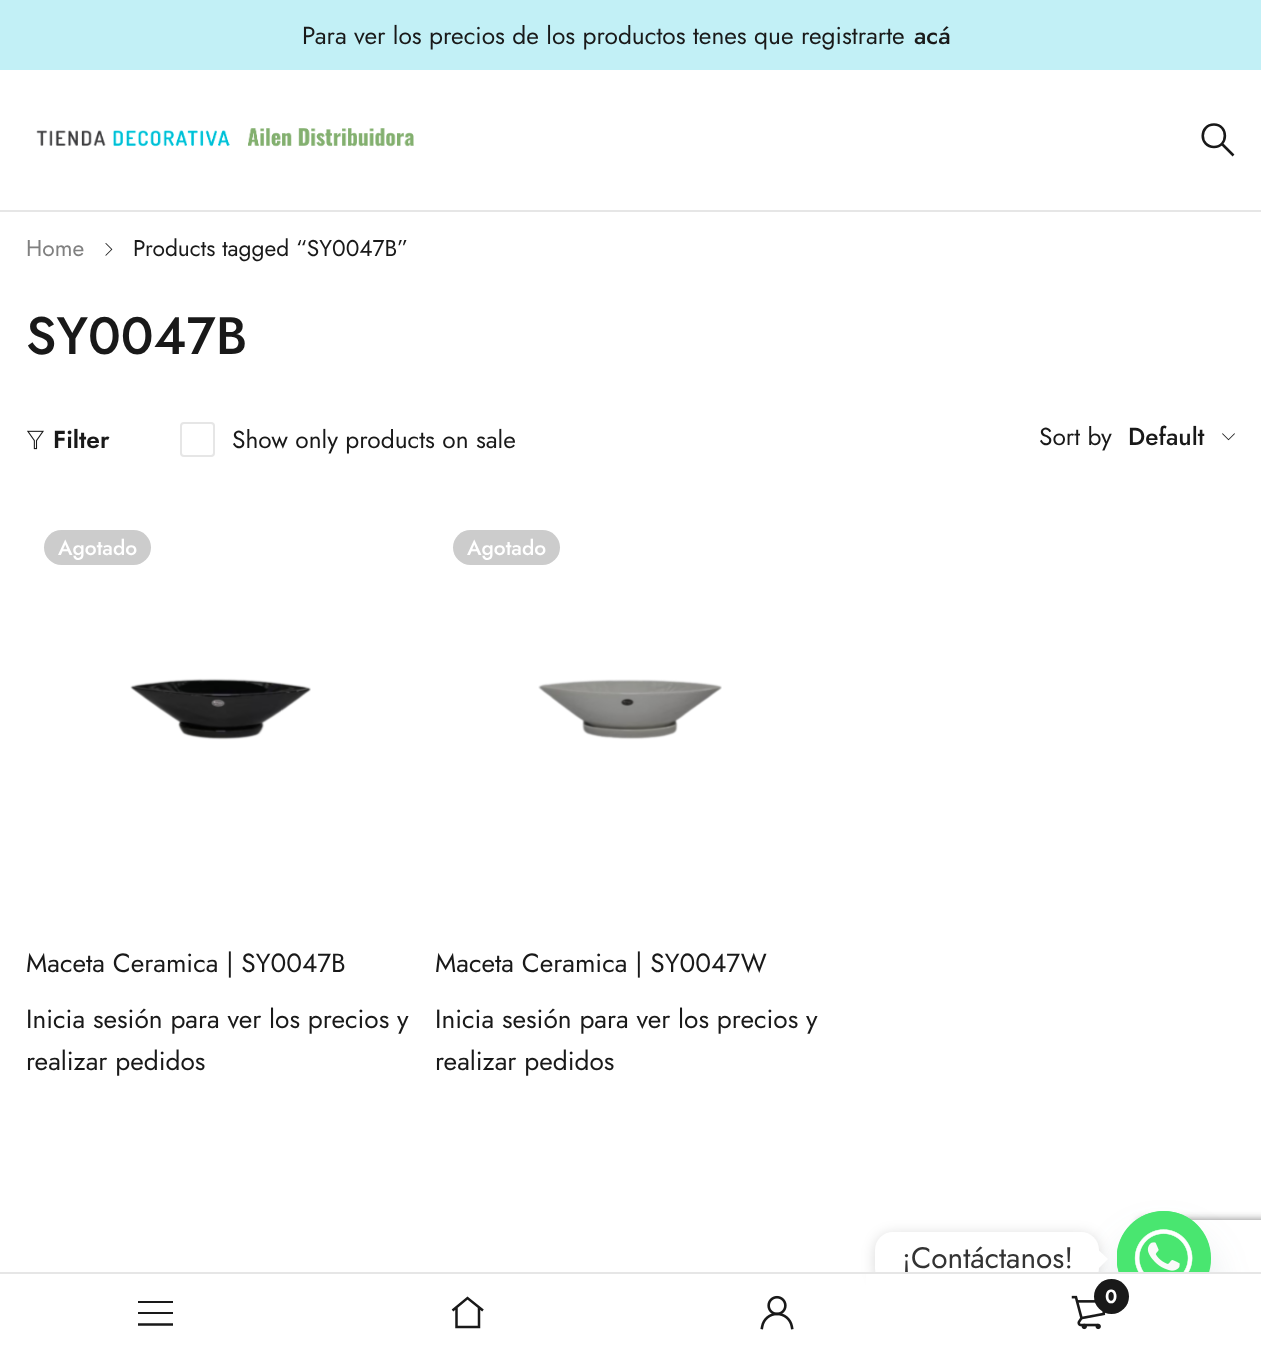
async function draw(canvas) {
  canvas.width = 1261;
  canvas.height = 1348;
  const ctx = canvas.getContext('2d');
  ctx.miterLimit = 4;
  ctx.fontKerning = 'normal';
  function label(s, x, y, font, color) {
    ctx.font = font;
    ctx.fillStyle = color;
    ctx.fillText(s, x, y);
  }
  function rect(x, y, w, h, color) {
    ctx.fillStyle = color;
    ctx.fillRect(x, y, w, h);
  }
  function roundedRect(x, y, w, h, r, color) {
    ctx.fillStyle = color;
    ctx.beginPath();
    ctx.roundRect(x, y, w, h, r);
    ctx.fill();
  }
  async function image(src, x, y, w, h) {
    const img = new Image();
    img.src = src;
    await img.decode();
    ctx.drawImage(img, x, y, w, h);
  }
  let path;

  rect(0, 0, 1261, 1348, '#fff');
  rect(0, 0, 1261, 70, '#c2f0f6');
  label('Para ver los precios de los productos tenes que registrarte', 302, 44, '24.5px Jost', '#191919');
  label('acá', 914, 44, '500 24.5px Jost', '#191919');
  rect(0, 210, 1261, 2, '#e6e6e6');
  await image('assets/img1.png', 36, 128, 378, 19);
  path = new Path2D('M1214 147C1228.5 147 1228.5 124.5 1214 124.5C1199 124.5 1199 147 1214 147ZM1233.5 155.5L1221.5 143.5');
  ctx.strokeStyle = '#191919';
  ctx.lineWidth = 2.6;
  ctx.stroke(path);
  label('Home', 26, 256, '22.75px Jost', '#808080');
  await image('assets/img2.png', 105, 243, 8, 13);
  label('Products tagged “SY0047B”', 133, 256, '22.75px Jost', '#191919');
  label('SY0047B', 26, 354, '500 52.5px Jost', '#191919');
  await image('assets/img3.png', 27, 430, 17, 20);
  label('Filter', 53, 448, '600 24.5px Jost', '#191919');
  ctx.beginPath();
  ctx.roundRect(181, 423, 33, 33, 3);
  ctx.strokeStyle = '#e6e6e6';
  ctx.lineWidth = 2;
  ctx.stroke();
  label('Show only products on sale', 232, 448, '24.5px Jost', '#191919');
  label('Sort by', 1039, 445, '24.5px Jost', '#191919');
  label('Default', 1128, 445, '500 24.5px Jost', '#191919');
  await image('assets/img4.png', 1222, 433, 13, 8);
  roundedRect(44, 530, 107, 35, 17.5, '#ccc');
  label('Agotado', 58, 555, '500 21px Jost', '#fff');
  await image('assets/img5.png', 130, 678, 181, 62);
  label('Maceta Ceramica | SY0047B', 26, 972, '26.25px Jost', '#191919');
  label('Inicia sesión para ver los precios y', 26, 1028, '26.25px Jost', '#191919');
  label('realizar pedidos', 26, 1070, '26.25px Jost', '#191919');
  roundedRect(453, 530, 107, 35, 17.5, '#ccc');
  label('Agotado', 467, 555, '500 21px Jost', '#fff');
  await image('assets/img6.png', 538, 679, 184, 61);
  label('Maceta Ceramica | SY0047W', 435, 972, '26.25px Jost', '#191919');
  label('Inicia sesión para ver los precios y', 435, 1028, '26.25px Jost', '#191919');
  label('realizar pedidos', 435, 1070, '26.25px Jost', '#191919');
  ctx.fillStyle = '#49687e29';
  ctx.filter = 'blur(21px)';
  ctx.beginPath();
  ctx.roundRect(1117, 1239, 94, 95, 47);
  ctx.fill();
  ctx.filter = 'none';
  ctx.save();
  path = new Path2D('M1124 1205H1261V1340H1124ZM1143 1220H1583C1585 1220 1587 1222 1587 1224V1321C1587 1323 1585 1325 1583 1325H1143C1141 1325 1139 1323 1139 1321V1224C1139 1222 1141 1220 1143 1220Z');
  ctx.clip(path, 'evenodd');
  ctx.fillStyle = '#808080';
  ctx.filter = 'blur(4.5px)';
  ctx.beginPath();
  ctx.roundRect(1139, 1220, 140, 105, 4);
  ctx.fill();
  ctx.filter = 'none';
  ctx.restore();
  roundedRect(1117, 1211, 94, 95, 47, '#49e670');
  await image('assets/img7.png', 1117, 1211, 94, 61);
  ctx.fillStyle = '#00000026';
  ctx.filter = 'blur(7px)';
  ctx.beginPath();
  ctx.roundRect(875, 1234, 224, 54, 18);
  ctx.fill();
  ctx.filter = 'none';
  roundedRect(875, 1232, 224, 54, 18, '#fff');
  label('¡Contáctanos!', 902, 1268, '29.75px Jost', '#333');
  ctx.fillStyle = '#fff';
  path = new Path2D('M1099 1268V1250.5L1108 1259Z');
  ctx.fill(path);
  rect(866, 1274, 395, 74, '#fff');
  rect(0, 1272, 1261, 2, '#e6e6e6');
  rect(138, 1301, 35, 2, '#191919');
  rect(138, 1312, 35, 2, '#191919');
  path = new Path2D('M138 1324.5H173');
  ctx.strokeStyle = '#191919';
  ctx.lineWidth = 2.4;
  ctx.stroke(path);
  path = new Path2D('M479 1307.5V1327H456.5V1307.5M483 1310.5L467.5 1298L452.5 1310.5');
  ctx.lineWidth = 2.5;
  ctx.stroke(path);
  await image('assets/img8.png', 760, 1295, 34, 35);
  await image('assets/img9.png', 1071, 1295, 35, 35);
  ctx.beginPath();
  ctx.arc(1111.5, 1296.5, 17.5, 0, 2 * Math.PI);
  ctx.fill();
  label('0', 1105, 1303, '600 19px Jost', '#fff');
}

draw(document.querySelector('canvas'));
